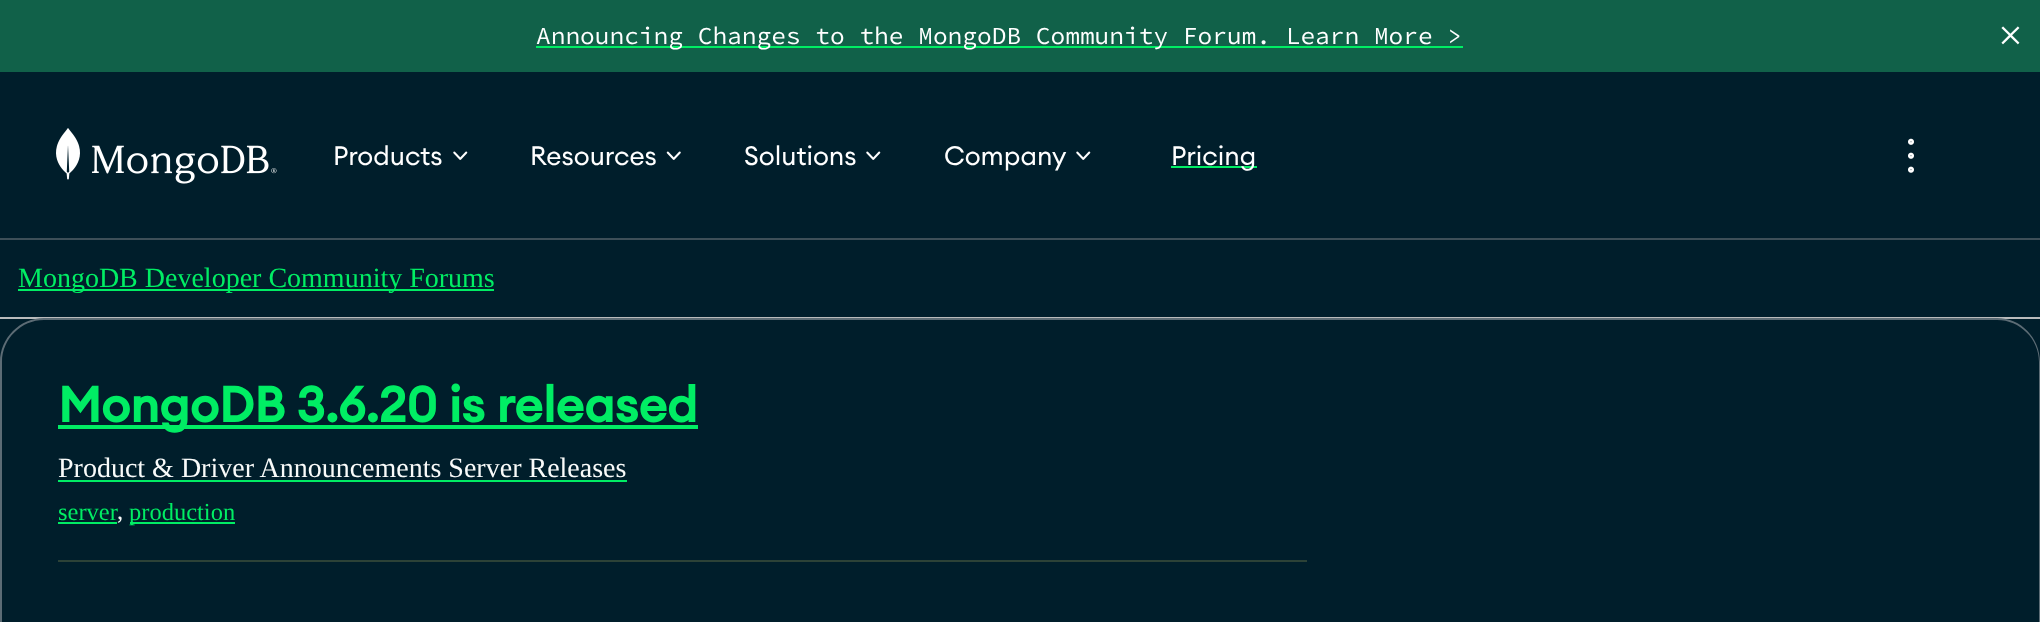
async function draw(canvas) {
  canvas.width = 2040;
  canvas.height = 622;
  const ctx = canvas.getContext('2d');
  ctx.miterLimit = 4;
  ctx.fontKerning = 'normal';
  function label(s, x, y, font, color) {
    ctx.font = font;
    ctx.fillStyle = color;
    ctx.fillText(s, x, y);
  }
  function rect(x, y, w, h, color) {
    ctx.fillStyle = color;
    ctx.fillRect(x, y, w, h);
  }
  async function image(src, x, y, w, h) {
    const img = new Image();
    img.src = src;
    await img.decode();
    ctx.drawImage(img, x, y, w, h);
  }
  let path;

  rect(0, 0, 2040, 622, '#001e2b');
  rect(0, 0, 2040, 72, '#116149');
  rect(536, 46, 927, 2, '#00ed64');
  label('Announcing Changes to the MongoDB Community Forum. Learn More >', 536, 44, '24.5px Source Code Pro', '#fff');
  label('×', 1998, 50, '44px Liberation Serif', '#fff');
  rect(0, 238, 2040, 2, '#3d4f58');
  await image('assets/img1.png', 56, 128, 221, 56);
  label('Products', 333, 165, '26.25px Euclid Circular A', '#fff');
  await image('assets/img2.png', 453, 151, 15, 9);
  label('Resources', 530, 165, '26.25px Euclid Circular A', '#fff');
  await image('assets/img3.png', 666, 151, 15, 9);
  label('Solutions', 744, 165, '26.25px Euclid Circular A', '#fff');
  await image('assets/img2.png', 866, 151, 15, 9);
  label('Company', 944, 165, '26.25px Euclid Circular A', '#fff');
  await image('assets/img2.png', 1076, 151, 15, 9);
  rect(1171, 166, 86, 2, '#00ed64');
  label('Pricing', 1171, 165, '26.25px Euclid Circular A', '#fff');
  await image('assets/img4.png', 1908, 138, 6, 35);
  rect(0, 317, 2040, 2, '#b9bbbc');
  rect(18, 289, 476, 2, '#00ed64');
  label('MongoDB Developer Community Forums', 18, 287, '28px Liberation Serif', '#00ed64');
  ctx.fillStyle = '#5c6c75';
  path = new Path2D('M44 318H1997C2021 318 2040 338 2040 362V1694C2040 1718 2021 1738 1997 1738H44C20 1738 0 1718 0 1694V362C0 338 20 318 44 318ZM44 320H1997C2020 320 2039 339 2039 362V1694C2039 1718 2020 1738 1997 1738H44C21 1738 2 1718 2 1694V362C2 339 21 320 44 320Z');
  ctx.fill(path, 'evenodd');
  rect(58, 425, 640, 4, '#00ed64');
  label('MongoDB 3.6.20 is released', 58, 422, 'bold 49px Euclid Circular A', '#00ed64');
  label('Product & Driver Announcements Server Releases', 58, 477, '28px Liberation Serif', '#f9fbfa');
  rect(58, 480, 569, 2, '#00ed64');
  label('server', 58, 520, '24.5px Liberation Serif', '#00ed64');
  rect(58, 522, 59, 2, '#00ed64');
  label(',', 117, 519, '24.5px Liberation Serif', '#f9fbfa');
  rect(130, 522, 105, 2, '#00ed64');
  label('production', 129, 520, '24.5px Liberation Serif', '#00ed64');
  rect(58, 560, 1249, 2, '#2c4237');
}

draw(document.querySelector('canvas'));
